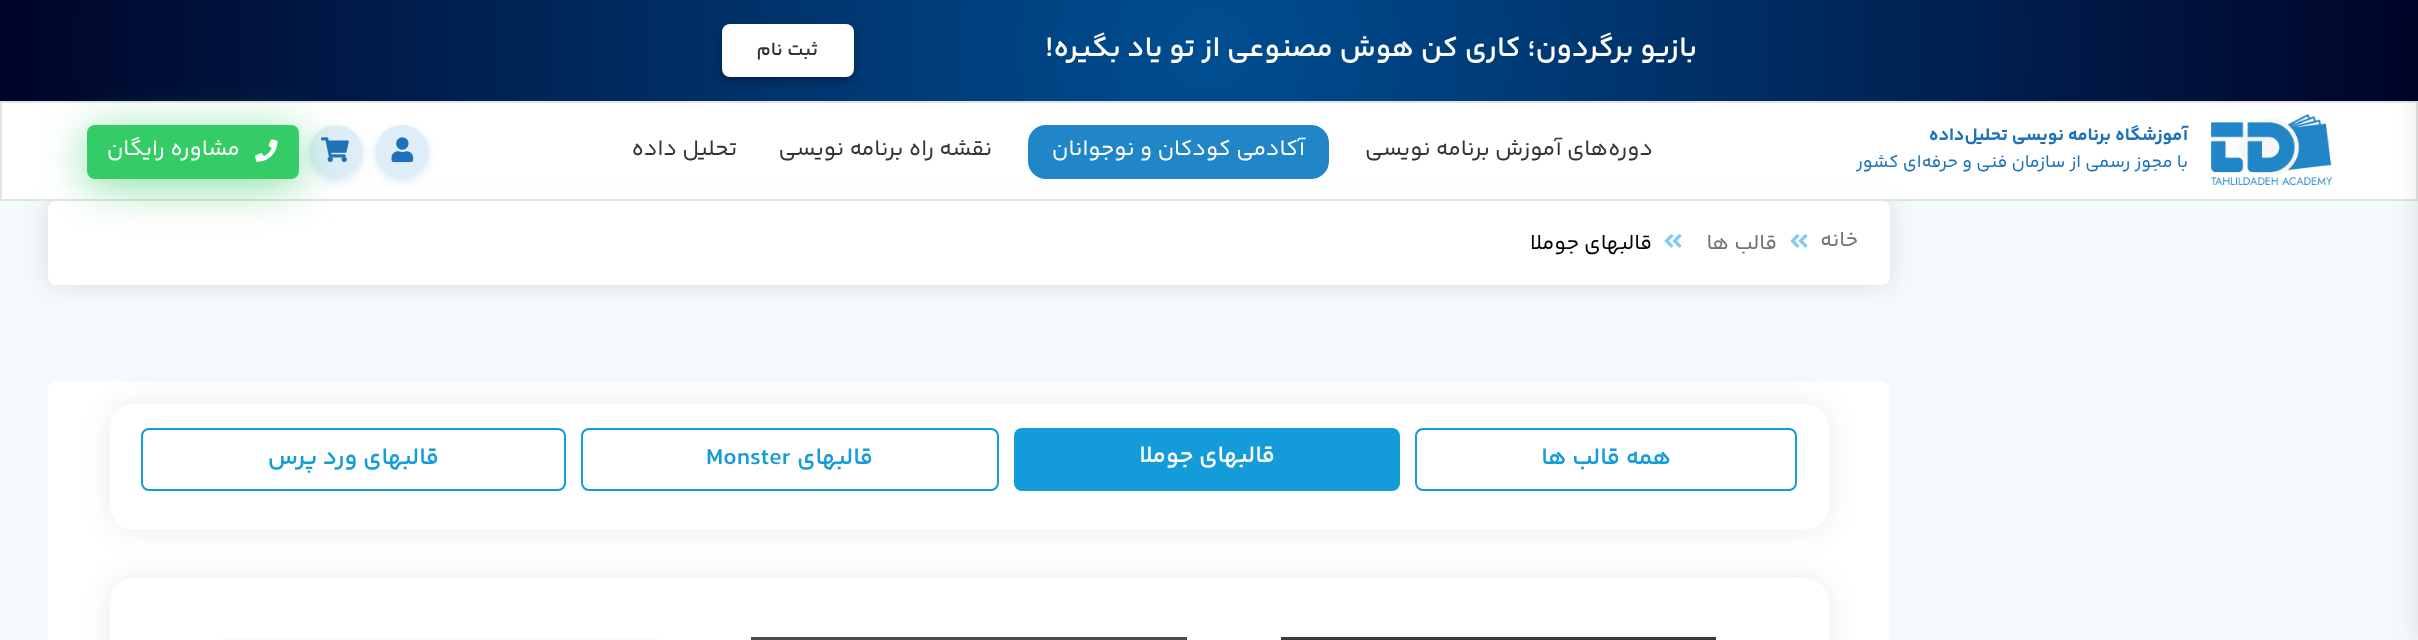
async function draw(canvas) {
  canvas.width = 2418;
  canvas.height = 640;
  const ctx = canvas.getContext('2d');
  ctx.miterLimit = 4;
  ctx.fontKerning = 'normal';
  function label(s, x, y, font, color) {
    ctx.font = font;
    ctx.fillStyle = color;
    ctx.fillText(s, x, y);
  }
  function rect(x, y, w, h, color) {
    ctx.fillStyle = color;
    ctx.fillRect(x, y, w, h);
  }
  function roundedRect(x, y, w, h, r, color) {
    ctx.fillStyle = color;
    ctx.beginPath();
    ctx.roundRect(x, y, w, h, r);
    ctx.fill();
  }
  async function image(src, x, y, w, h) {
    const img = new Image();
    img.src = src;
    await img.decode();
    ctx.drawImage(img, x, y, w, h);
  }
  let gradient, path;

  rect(0, 0, 2418, 640, '#fff');
  gradient = ctx.createRadialGradient(1209, 50, 0, 1209, 50, 1210);
  gradient.addColorStop(0, '#004e92');
  gradient.addColorStop(1, '#000428');
  ctx.fillStyle = gradient;
  ctx.fillRect(0, 0, 2418, 101);
  rect(0, 201, 2418, 439, '#f4f9fc');
  ctx.fillStyle = '#0000001c';
  ctx.filter = 'blur(11px)';
  ctx.beginPath();
  ctx.roundRect(48, 201, 1842, 84, 8);
  ctx.fill();
  ctx.filter = 'none';
  rect(41, 186, 1856, 13, '#fff');
  ctx.strokeStyle = '#e3e3e3';
  ctx.lineWidth = 2;
  ctx.strokeRect(1, 102, 2416, 98);
  ctx.fillStyle = '#0000001c';
  ctx.filter = 'blur(11px)';
  ctx.beginPath();
  ctx.rect(2418, 0, 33, 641);
  ctx.fill();
  ctx.filter = 'none';
  ctx.direction = 'rtl';
  label('بازیو برگردون؛ کاری کن هوش مصنوعی از تو یاد بگیره!', 1697, 56, '600 28.8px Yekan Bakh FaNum', '#fff');
  ctx.fillStyle = '#0000004d';
  ctx.filter = 'blur(4.5px)';
  ctx.beginPath();
  ctx.roundRect(722, 29, 132, 52, 8);
  ctx.fill();
  ctx.filter = 'none';
  roundedRect(722, 24, 132, 53, 8, '#fff');
  label('ثبت نام', 818, 55, '600 19px Yekan Bakh FaNum', '#333');
  await image('assets/img1.png', 2211, 114, 122, 72);
  label('آموزشگاه برنامه نویسی تحلیل‌داده', 2188, 140, 'bold 18px Yekan Bakh FaNum', '#1d71b9');
  label('با مجوز رسمی از سازمان فنی و حرفه‌ای کشور', 2188, 167, '18px Yekan Bakh FaNum', '#1d71b9');
  label('دوره‌های آموزش برنامه نویسی', 1653, 155, '22.5px Yekan Bakh FaNum', '#333');
  roundedRect(1028, 125, 301, 54, 18, '#2086c8');
  label('آکادمی کودکان و نوجوانان', 1305, 155, '22.5px Yekan Bakh FaNum', '#fff');
  label('نقشه راه برنامه نویسی', 992, 155, '22.5px Yekan Bakh FaNum', '#333');
  label('تحلیل داده', 737, 155, '22.5px Yekan Bakh FaNum', '#333');
  ctx.save();
  path = new Path2D('M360 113H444V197H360ZM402 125C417 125 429 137 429 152C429 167 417 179 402 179C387 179 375 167 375 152C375 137 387 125 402 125Z');
  ctx.clip(path, 'evenodd');
  ctx.fillStyle = '#1d71b924';
  ctx.filter = 'blur(4.5px)';
  ctx.beginPath();
  ctx.roundRect(375, 128, 54, 54, 27);
  ctx.fill();
  ctx.filter = 'none';
  ctx.restore();
  ctx.fillStyle = '#2086c826';
  ctx.beginPath();
  ctx.arc(402, 152, 27, 0, 2 * Math.PI);
  ctx.fill();
  await image('assets/img2.png', 391, 137, 23, 26);
  ctx.save();
  path = new Path2D('M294 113H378V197H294ZM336 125C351 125 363 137 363 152C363 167 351 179 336 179C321 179 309 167 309 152C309 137 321 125 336 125Z');
  ctx.clip(path, 'evenodd');
  ctx.fillStyle = '#1d71b924';
  ctx.filter = 'blur(4.5px)';
  ctx.beginPath();
  ctx.roundRect(309, 128, 54, 54, 27);
  ctx.fill();
  ctx.filter = 'none';
  ctx.restore();
  ctx.beginPath();
  ctx.arc(336, 152, 27, 0, 2 * Math.PI);
  ctx.fill();
  await image('assets/img3.png', 321, 137, 28, 26);
  roundedRect(48, 201, 1842, 84, 8, '#fff');
  ctx.fillStyle = '#33cc6699';
  ctx.filter = 'blur(22.5px)';
  ctx.beginPath();
  ctx.roundRect(87, 132, 212, 54, 8);
  ctx.fill();
  ctx.filter = 'none';
  roundedRect(87, 125, 212, 54, 8, '#3c6');
  await image('assets/img4.png', 255, 139, 23, 23);
  label('مشاوره رایگان', 240, 155, '22.5px Yekan Bakh FaNum', '#fff');
  label('خانه', 1858, 246, '21.5px Yekan Bakh FaNum', '#727272');
  await image('assets/img5.png', 1790, 234, 18, 14);
  label('قالب ها', 1777, 249, '21.5px Yekan Bakh FaNum', '#727272');
  await image('assets/img5.png', 1664, 234, 18, 14);
  label('قالبهاي جوملا', 1652, 249, '21.5px Yekan Bakh FaNum', '#000');
  roundedRect(48, 381, 1842, 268, 9, '#fff');
  ctx.fillStyle = '#00000014';
  ctx.filter = 'blur(15px)';
  ctx.beginPath();
  ctx.roundRect(110, 404, 1719, 126, 24);
  ctx.fill();
  ctx.filter = 'none';
  roundedRect(110, 404, 1719, 126, 24, '#fff');
  ctx.beginPath();
  ctx.roundRect(1416, 429, 380, 61, 7);
  ctx.strokeStyle = '#149bd9';
  ctx.stroke();
  label('همه قالب ها', 1671, 464, '600 24px Yekan Bakh FaNum', '#149bd9');
  roundedRect(1014, 428, 386, 63, 8, '#149bd9');
  label('قالبهاي جوملا', 1275, 462, '600 24px Yekan Bakh FaNum', '#fff');
  ctx.beginPath();
  ctx.roundRect(582, 429, 416, 61, 7);
  ctx.stroke();
  label('قالبهاي', 873, 464, '600 24px Yekan Bakh FaNum', '#149bd9');
  ctx.direction = 'ltr';
  label('Monster', 706, 464, '600 24px Yekan Bakh FaNum', '#149bd9');
  ctx.beginPath();
  ctx.roundRect(142, 429, 423, 61, 7);
  ctx.stroke();
  ctx.direction = 'rtl';
  label('قالبهای ورد پرس', 439, 464, '600 24px Yekan Bakh FaNum', '#149bd9');
  ctx.fillStyle = '#00000014';
  ctx.filter = 'blur(15px)';
  ctx.beginPath();
  ctx.roundRect(110, 578, 1719, 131, 24);
  ctx.fill();
  ctx.filter = 'none';
  roundedRect(110, 578, 1719, 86, 24, '#fff');
  rect(1281, 637, 435, 3, '#393939');
  rect(751, 637, 436, 3, '#4a4a4a');
  rect(222, 638, 435, 2, '#f8f8f4');
}

draw(document.querySelector('canvas'));
